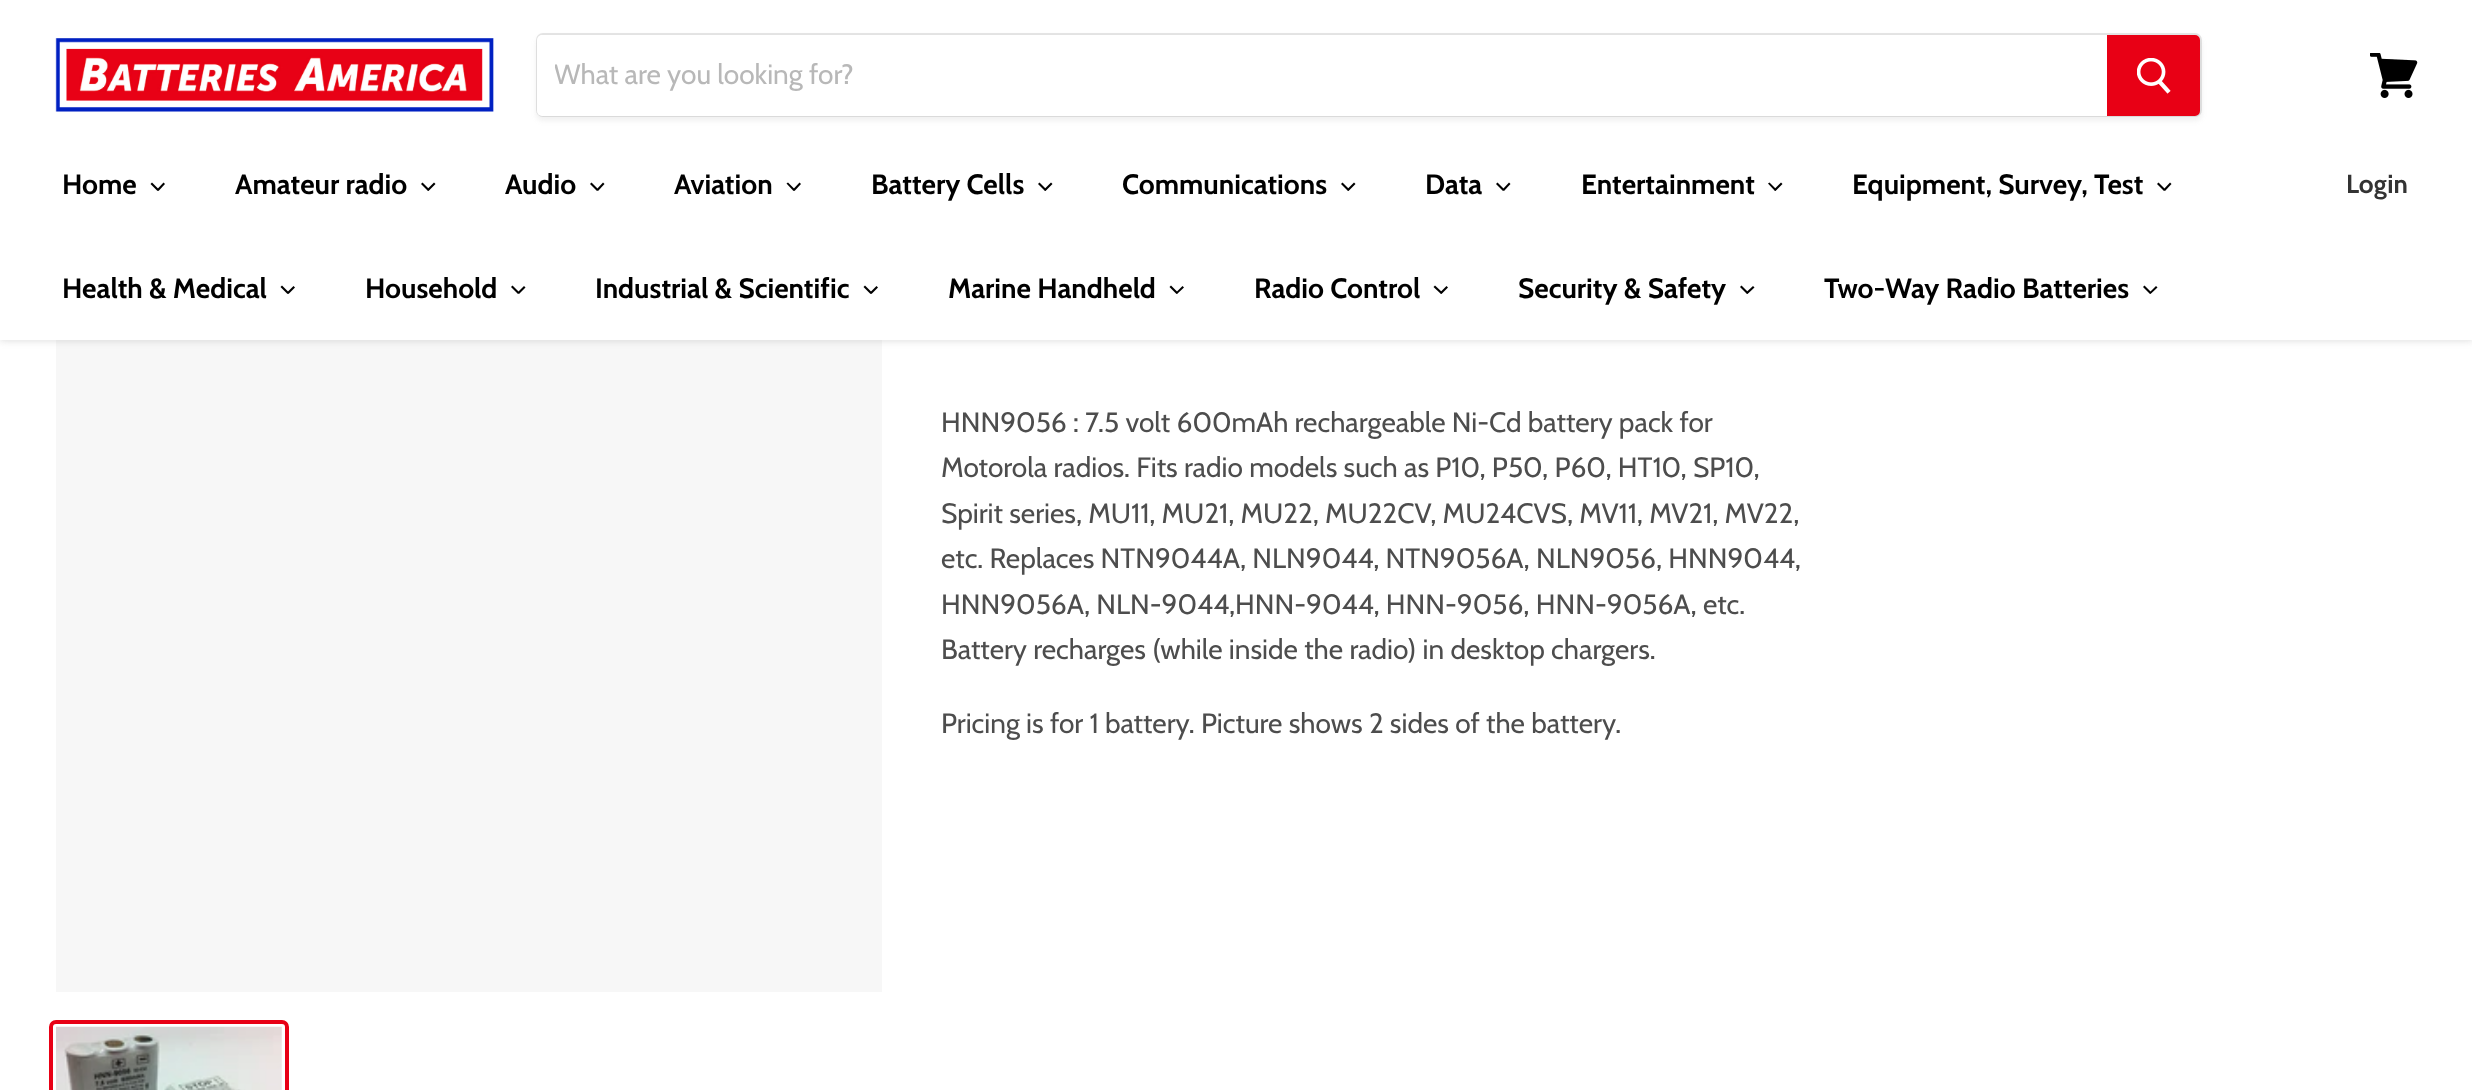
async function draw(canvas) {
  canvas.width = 2472;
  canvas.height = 1090;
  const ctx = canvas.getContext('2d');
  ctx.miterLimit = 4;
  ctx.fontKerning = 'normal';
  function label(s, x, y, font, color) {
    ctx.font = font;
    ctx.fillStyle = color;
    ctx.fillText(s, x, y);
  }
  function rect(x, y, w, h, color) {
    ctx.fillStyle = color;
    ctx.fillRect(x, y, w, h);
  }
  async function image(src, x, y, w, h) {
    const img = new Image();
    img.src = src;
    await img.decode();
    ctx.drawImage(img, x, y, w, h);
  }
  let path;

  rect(0, 0, 2472, 1090, '#fff');
  rect(56, 340, 826, 652, '#f7f7f7');
  ctx.fillStyle = '#7f7f7f40';
  ctx.filter = 'blur(3.5px)';
  ctx.beginPath();
  ctx.rect(0, 2, 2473, 339);
  ctx.fill();
  ctx.filter = 'none';
  rect(0, 0, 2472, 340, '#fff');
  await image('assets/img1.png', 55, 38, 439, 74);
  ctx.fillStyle = '#7f7f7f1c';
  ctx.filter = 'blur(2.5px)';
  ctx.beginPath();
  ctx.roundRect(536, 37, 1666, 84, 7);
  ctx.fill();
  ctx.filter = 'none';
  ctx.beginPath();
  ctx.roundRect(537, 34, 1664, 82, 6);
  ctx.strokeStyle = '#7f7f7f33';
  ctx.lineWidth = 2;
  ctx.stroke();
  ctx.fillStyle = '#fff';
  ctx.beginPath();
  ctx.roundRect(537, 35, 1570, 81, [5, 0, 0, 5]);
  ctx.fill();
  ctx.save();
  ctx.beginPath();
  ctx.rect(555, 58, 1535, 33);
  ctx.clip();
  label('What are you looking for?', 554, 84, '28px Cabin', '#b8b8b8');
  ctx.restore();
  ctx.fillStyle = '#e80015';
  ctx.beginPath();
  ctx.roundRect(2108, 36, 91, 79, [0, 4, 4, 0]);
  ctx.fill();
  ctx.strokeStyle = '#e80015';
  ctx.stroke();
  await image('assets/img2.png', 2137, 58, 34, 36);
  await image('assets/img3.png', 2370, 53, 48, 45);
  label('Home', 62, 194, 'bold 28px Cabin', '#000');
  path = new Path2D('M163.5 182.5L165 184L158.5 191L157 189.5Z');
  ctx.fill(path);
  path = new Path2D('M152 182.5L159 189.5L157.5 191L150.5 184Z');
  ctx.fill(path);
  label('Amateur radio', 235, 194, 'bold 28px Cabin', '#000');
  path = new Path2D('M434 182.5L435.5 184L428.5 191L427 189.5Z');
  ctx.fill(path);
  path = new Path2D('M422.5 182.5L429.5 189.5L428 191L421 184Z');
  ctx.fill(path);
  label('Audio', 505, 194, 'bold 28px Cabin', '#000');
  path = new Path2D('M603 182.5L604.5 184L598 191L596.5 189.5Z');
  ctx.fill(path);
  path = new Path2D('M591.5 182.5L598.5 189.5L597 191L590 184Z');
  ctx.fill(path);
  label('Aviation', 674, 194, 'bold 28px Cabin', '#000');
  path = new Path2D('M799.5 182.5L801 184L794.5 191L793 189.5Z');
  ctx.fill(path);
  path = new Path2D('M788 182.5L795 189.5L793.5 191L786.5 183.5Z');
  ctx.fill(path);
  label('Battery Cells', 871, 194, 'bold 28px Cabin', '#000');
  path = new Path2D('M1051 182.5L1052.5 184L1045.5 191L1044 189.5Z');
  ctx.fill(path);
  path = new Path2D('M1039.5 182.5L1046.5 189.5L1045 191L1038 184Z');
  ctx.fill(path);
  label('Communications', 1122, 194, 'bold 28px Cabin', '#000');
  path = new Path2D('M1354 182.5L1355.5 184L1348.5 191L1347 189.5Z');
  ctx.fill(path);
  path = new Path2D('M1342.5 182.5L1349.5 189.5L1348 191L1341 184Z');
  ctx.fill(path);
  label('Data', 1425, 194, 'bold 28px Cabin', '#000');
  path = new Path2D('M1509 182.5L1510.5 184L1504 191L1502.5 189.5Z');
  ctx.fill(path);
  path = new Path2D('M1497.5 182.5L1504.5 189.5L1503 191L1496 184Z');
  ctx.fill(path);
  label('Entertainment', 1581, 194, 'bold 28px Cabin', '#000');
  path = new Path2D('M1781 182.5L1782.5 184L1775.5 191L1774 189.5Z');
  ctx.fill(path);
  path = new Path2D('M1769.5 182.5L1776.5 189.5L1775 191L1768 183.5Z');
  ctx.fill(path);
  label('Equipment, Survey, Test', 1852, 194, 'bold 28px Cabin', '#000');
  path = new Path2D('M2170 182.5L2171.5 184L2165 191L2163.5 189.5Z');
  ctx.fill(path);
  path = new Path2D('M2158.5 182.5L2165.5 189.5L2164 191L2157 184Z');
  ctx.fill(path);
  label('Health & Medical', 62, 298, 'bold 28px Cabin', '#000');
  path = new Path2D('M293.5 286L295 287.5L288.5 294L287 292.5Z');
  ctx.fill(path);
  path = new Path2D('M282 285.5L289 292.5L287.5 294L280.5 287Z');
  ctx.fill(path);
  label('Household', 365, 298, 'bold 28px Cabin', '#000');
  path = new Path2D('M524 286L525.5 287.5L519 294L517.5 292.5Z');
  ctx.fill(path);
  path = new Path2D('M512.5 285.5L519.5 292.5L518 294L511 287Z');
  ctx.fill(path);
  label('Industrial & Scientific', 595, 298, 'bold 28px Cabin', '#000');
  path = new Path2D('M876.5 286L878 287.5L871.5 294L870 292.5Z');
  ctx.fill(path);
  path = new Path2D('M865 285.5L872 292.5L870.5 294L863.5 287Z');
  ctx.fill(path);
  label('Marine Handheld', 948, 298, 'bold 28px Cabin', '#000');
  path = new Path2D('M1182.5 286L1184 287.5L1177 294L1176 292.5Z');
  ctx.fill(path);
  path = new Path2D('M1171 285.5L1178 292.5L1176.5 294L1169.5 287Z');
  ctx.fill(path);
  label('Radio Control', 1254, 298, 'bold 28px Cabin', '#000');
  path = new Path2D('M1446.5 286L1448 287.5L1441.5 294L1440 292.5Z');
  ctx.fill(path);
  path = new Path2D('M1435 285.5L1442.5 292.5L1441 294L1433.5 287Z');
  ctx.fill(path);
  label('Security & Safety', 1518, 298, 'bold 28px Cabin', '#000');
  path = new Path2D('M1753 286L1754.5 287.5L1747.5 294L1746 292.5Z');
  ctx.fill(path);
  path = new Path2D('M1741.5 285.5L1748.5 292.5L1747 294L1740 287Z');
  ctx.fill(path);
  label('Two-Way Radio Batteries', 1824, 298, 'bold 28px Cabin', '#000');
  path = new Path2D('M2156 286L2157.5 287.5L2150.5 294L2149.5 292.5Z');
  ctx.fill(path);
  path = new Path2D('M2144.5 285.5L2151.5 292.5L2150 294L2143 287Z');
  ctx.fill(path);
  label('Login', 2346, 193, 'bold 26px Cabin', '#333');
  ctx.beginPath();
  ctx.roundRect(51, 1022, 236, 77, 5);
  ctx.lineWidth = 4;
  ctx.stroke();
  await image('assets/img4.png', 56, 1026, 226, 64);
  label('HNN9056 : 7.5 volt 600mAh rechargeable Ni-Cd battery pack for', 941, 432, '28px Cabin', '#4d4d4d');
  label('Motorola radios. Fits radio models such as P10, P50, P60, HT10, SP10,', 941, 477, '28px Cabin', '#4d4d4d');
  label('Spirit series, MU11, MU21, MU22, MU22CV, MU24CVS, MV11, MV21, MV22,', 941, 523, '28px Cabin', '#4d4d4d');
  label('etc. Replaces NTN9044A, NLN9044, NTN9056A, NLN9056, HNN9044,', 941, 568, '28px Cabin', '#4d4d4d');
  label('HNN9056A, NLN-9044,HNN-9044, HNN-9056, HNN-9056A, etc.', 941, 614, '28px Cabin', '#4d4d4d');
  label('Battery recharges (while inside the radio) in desktop chargers.', 941, 659, '28px Cabin', '#4d4d4d');
  label('Pricing is for 1 battery. Picture shows 2 sides of the battery.', 941, 733, '28px Cabin', '#4d4d4d');
}

draw(document.querySelector('canvas'));
